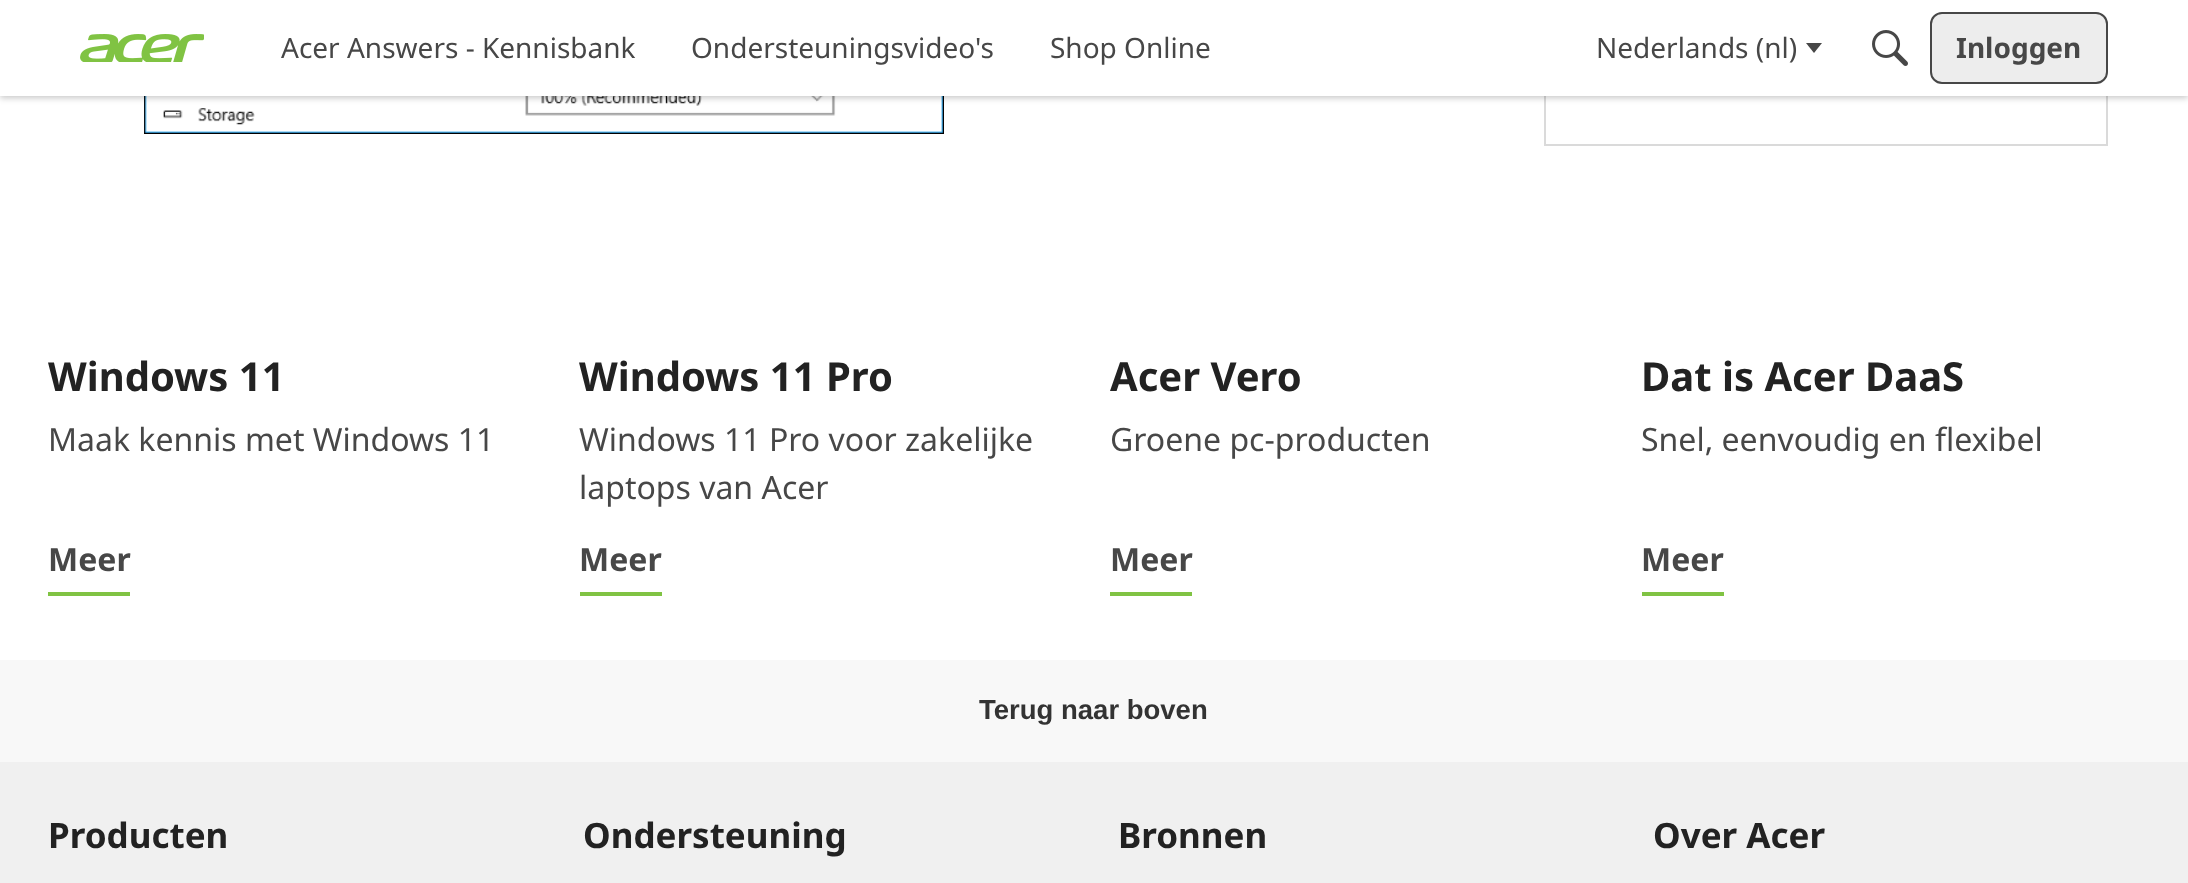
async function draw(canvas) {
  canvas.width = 2188;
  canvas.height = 883;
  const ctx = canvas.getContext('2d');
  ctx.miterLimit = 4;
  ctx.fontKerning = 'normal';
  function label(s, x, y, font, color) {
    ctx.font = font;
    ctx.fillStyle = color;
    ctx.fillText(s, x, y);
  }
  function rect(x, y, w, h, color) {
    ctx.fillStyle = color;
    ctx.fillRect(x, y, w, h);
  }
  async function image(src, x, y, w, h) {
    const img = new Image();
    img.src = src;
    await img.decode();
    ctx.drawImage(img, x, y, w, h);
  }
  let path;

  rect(0, 0, 2188, 883, '#fff');
  await image('assets/img1.png', 144, 96, 800, 38);
  ctx.strokeStyle = '#dadada';
  ctx.lineWidth = 2;
  ctx.strokeRect(1545, -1, 562, 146);
  ctx.fillStyle = '#00000038';
  ctx.filter = 'blur(3px)';
  ctx.beginPath();
  ctx.rect(0, 2, 2188, 96);
  ctx.fill();
  ctx.filter = 'none';
  rect(0, 0, 2188, 96, '#fff');
  await image('assets/img2.png', 80, 34, 124, 28);
  label('Acer Answers - Kennisbank', 281, 58, '28px Noto Sans', '#474747');
  label('Ondersteuningsvideo\'s', 691, 58, '28px Noto Sans', '#474747');
  label('Shop Online', 1050, 58, '28px Noto Sans', '#474747');
  label('Nederlands (nl)', 1596, 58, '28px Noto Sans', '#474747');
  path = new Path2D('M1806 43H1822L1814 53Z');
  ctx.fill(path);
  await image('assets/img3.png', 1872, 30, 36, 36);
  ctx.fillStyle = '#ededed';
  ctx.beginPath();
  ctx.roundRect(1931, 13, 176, 70, 11);
  ctx.fill();
  ctx.strokeStyle = '#474747';
  ctx.stroke();
  label('Inloggen', 1956, 58, 'bold 28px Noto Sans', '#474747');
  label('Windows 11', 48, 391, 'bold 40px Noto Sans', '#222');
  label('Maak kennis met Windows 11', 48, 451, '32px Noto Sans', '#474747');
  rect(48, 592, 82, 4, '#80c343');
  label('Meer', 48, 571, 'bold 32px Noto Sans', '#474747');
  label('Windows 11 Pro', 579, 391, 'bold 40px Noto Sans', '#222');
  label('Windows 11 Pro voor zakelijke', 579, 451, '32px Noto Sans', '#474747');
  label('laptops van Acer', 579, 499, '32px Noto Sans', '#474747');
  rect(580, 592, 82, 4, '#80c343');
  label('Meer', 579, 571, 'bold 32px Noto Sans', '#474747');
  label('Acer Vero', 1110, 391, 'bold 40px Noto Sans', '#222');
  label('Groene pc-producten', 1110, 451, '32px Noto Sans', '#474747');
  rect(1110, 592, 82, 4, '#80c343');
  label('Meer', 1110, 571, 'bold 32px Noto Sans', '#474747');
  label('Dat is Acer DaaS', 1641, 391, 'bold 40px Noto Sans', '#222');
  label('Snel, eenvoudig en flexibel', 1641, 451, '32px Noto Sans', '#474747');
  rect(1642, 592, 82, 4, '#80c343');
  label('Meer', 1641, 571, 'bold 32px Noto Sans', '#474747');
  rect(0, 762, 2188, 121, '#f0f0f0');
  rect(0, 660, 2188, 102, '#f8f8f8');
  label('Terug naar boven', 979, 719, 'bold 27.5px Liberation Sans', '#333');
  label('Producten', 48, 848, 'bold 35px Noto Sans', '#222');
  label('Ondersteuning', 583, 848, 'bold 35px Noto Sans', '#222');
  label('Bronnen', 1118, 848, 'bold 35px Noto Sans', '#222');
  label('Over Acer', 1653, 848, 'bold 35px Noto Sans', '#222');
}

draw(document.querySelector('canvas'));
